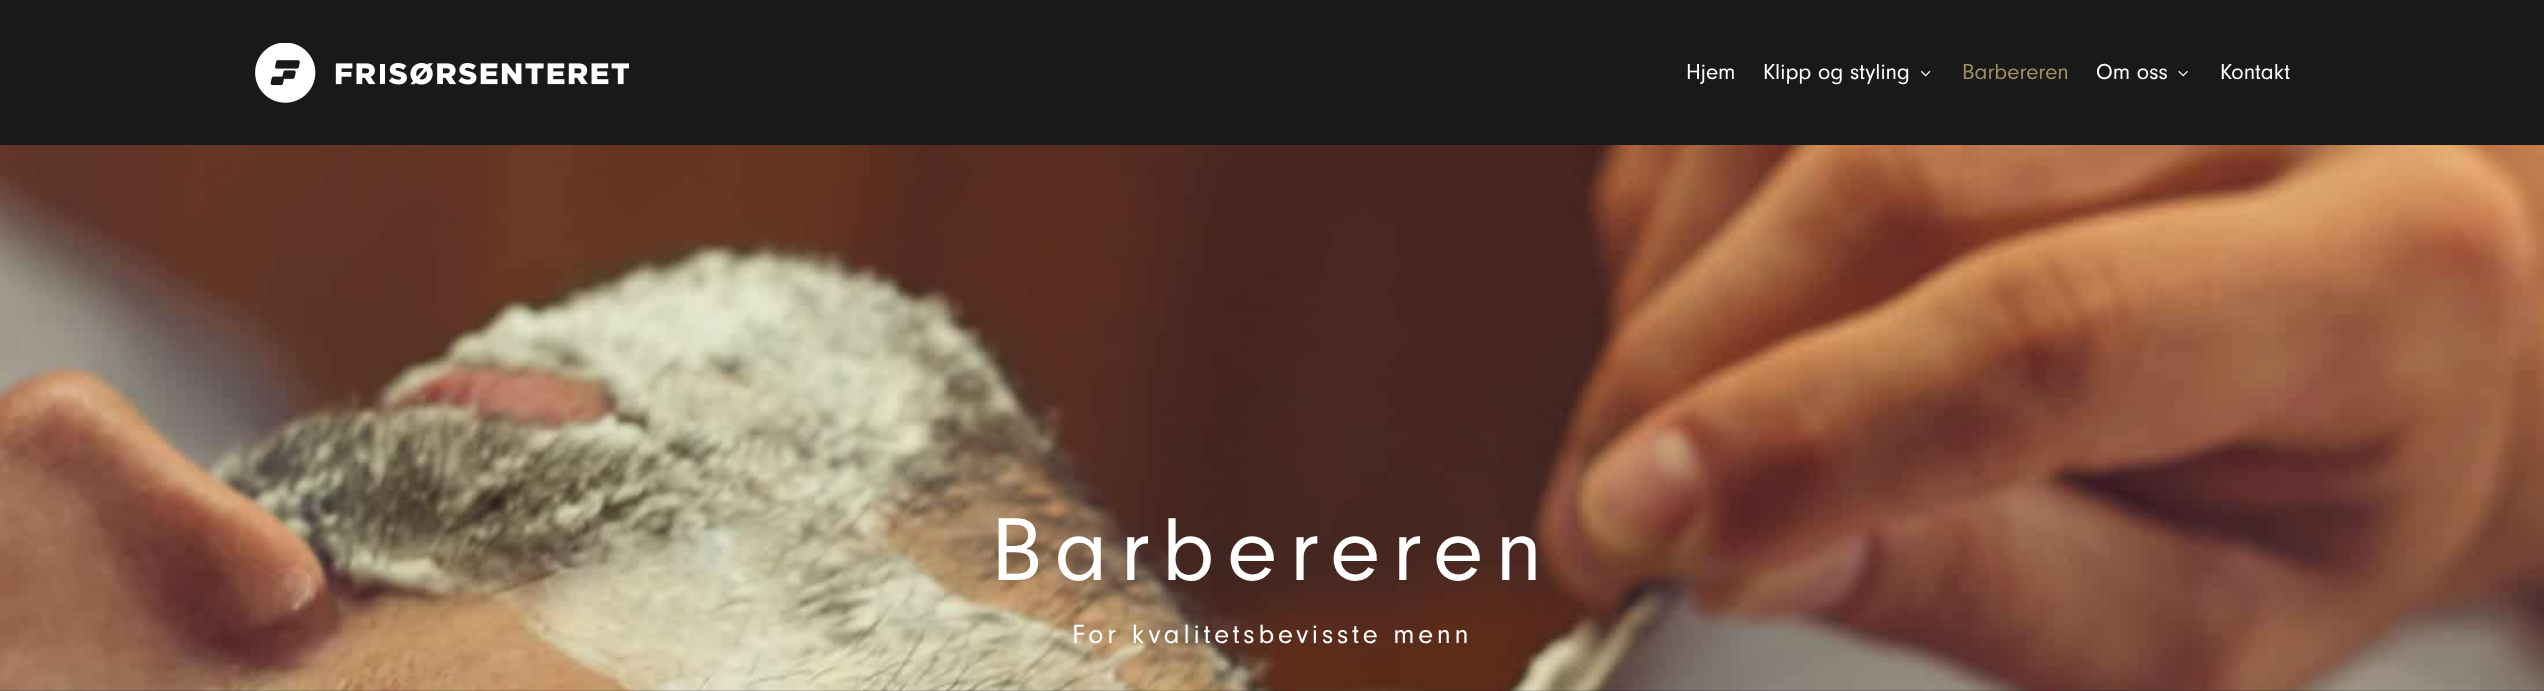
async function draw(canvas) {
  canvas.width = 2544;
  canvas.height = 691;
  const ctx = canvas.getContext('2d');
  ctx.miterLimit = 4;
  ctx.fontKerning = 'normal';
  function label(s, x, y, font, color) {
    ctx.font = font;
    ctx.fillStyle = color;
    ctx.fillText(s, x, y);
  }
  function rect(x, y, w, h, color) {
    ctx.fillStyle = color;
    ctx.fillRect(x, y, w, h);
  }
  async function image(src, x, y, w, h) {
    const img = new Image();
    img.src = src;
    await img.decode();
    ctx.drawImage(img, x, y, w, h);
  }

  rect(0, 0, 2544, 691, '#1a191a');
  await image('assets/img1.png', 255, 43, 374, 60);
  label('Hjem', 1686, 79, '22.5px "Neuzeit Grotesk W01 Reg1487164"', '#fff');
  label('Klipp og styling', 1763, 79, '22.5px "Neuzeit Grotesk W01 Reg1487164"', '#fff');
  await image('assets/img2.png', 1921, 71, 10, 6);
  label('Barbereren', 1962, 79, '22.5px "Neuzeit Grotesk W01 Reg1487164"', '#9d8f62');
  label('Om oss', 2096, 79, '22.5px "Neuzeit Grotesk W01 Reg1487164"', '#fff');
  await image('assets/img3.png', 2178, 71, 10, 6);
  label('Kontakt', 2220, 79, '22.5px "Neuzeit Grotesk W01 Reg1487164"', '#fff');
  await image('assets/img4.png', 0, 145, 2544, 546);
  ctx.letterSpacing = '12.5px';
  label('Barbereren', 991, 580, '92.5px "Neuzeit Grotesk W01 Reg1487164"', '#fff');
  ctx.letterSpacing = '3.75px';
  label('For kvalitetsbevisste menn', 1072, 643, '27.5px "Neuzeit Grotesk W01 Reg1487164"', '#fff');
}

draw(document.querySelector('canvas'));
